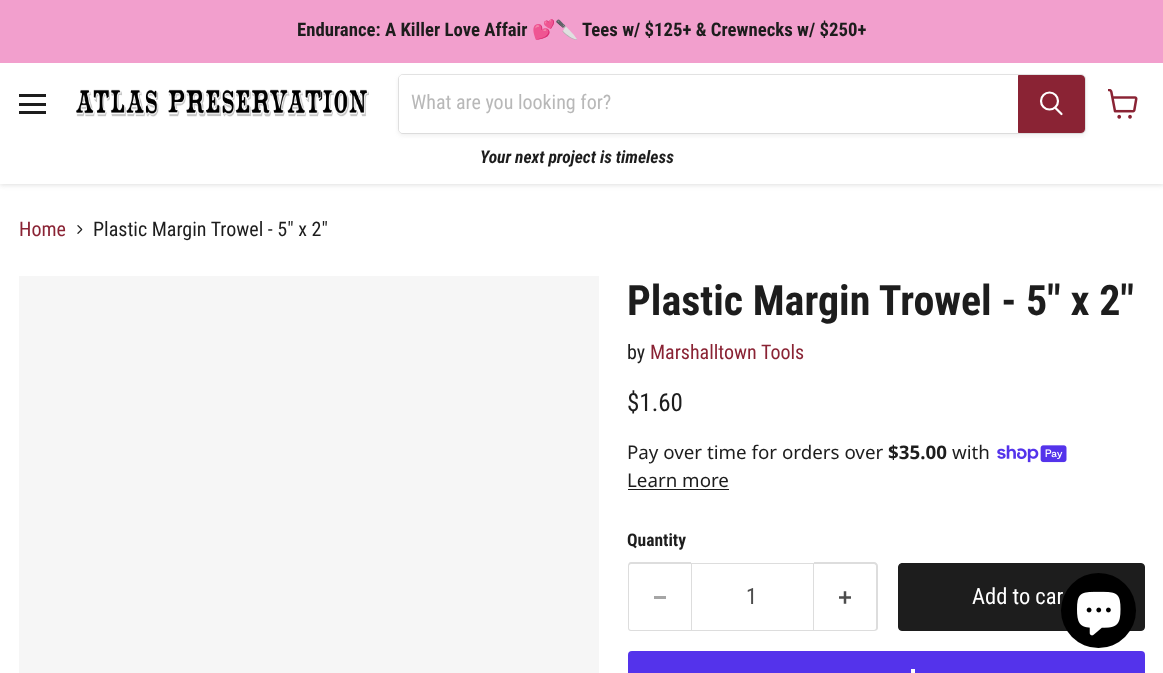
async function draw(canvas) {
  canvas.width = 1163;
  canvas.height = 673;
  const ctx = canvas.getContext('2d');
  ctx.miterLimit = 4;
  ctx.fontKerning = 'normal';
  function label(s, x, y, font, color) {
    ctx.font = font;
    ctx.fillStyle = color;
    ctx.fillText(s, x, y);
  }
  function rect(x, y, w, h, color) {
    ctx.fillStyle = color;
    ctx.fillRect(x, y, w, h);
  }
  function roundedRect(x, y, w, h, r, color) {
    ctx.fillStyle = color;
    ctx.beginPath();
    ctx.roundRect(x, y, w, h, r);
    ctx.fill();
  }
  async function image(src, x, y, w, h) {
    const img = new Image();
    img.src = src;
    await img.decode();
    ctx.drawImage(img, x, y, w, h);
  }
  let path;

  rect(0, 0, 1163, 673, '#fff');
  ctx.fillStyle = '#80808040';
  ctx.filter = 'blur(2.5px)';
  ctx.beginPath();
  ctx.rect(0, 64, 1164, 121);
  ctx.fill();
  ctx.filter = 'none';
  rect(0, 0, 1163, 63, '#f29fcd');
  label('Endurance: A Killer Love Affair', 297, 36, 'bold 18.75px Roboto Condensed', '#1d1d1d');
  label('💕🔪', 532, 36, 'bold 18.75px Noto Color Emoji', '#1d1d1d');
  label('Tees w/ $125+ & Crewnecks w/ $250+', 582, 36, 'bold 18.75px Roboto Condensed', '#1d1d1d');
  rect(0, 63, 1163, 121, '#fff');
  rect(19, 94, 27, 3, '#1d1d1d');
  rect(19, 103, 27, 3, '#1d1d1d');
  rect(19, 111, 27, 3, '#1d1d1d');
  await image('assets/img1.png', 76, 89, 293, 28);
  ctx.fillStyle = '#8080801c';
  ctx.filter = 'blur(2px)';
  ctx.beginPath();
  ctx.roundRect(398, 76, 688, 60, 5);
  ctx.fill();
  ctx.filter = 'none';
  ctx.beginPath();
  ctx.roundRect(398.5, 74.5, 687, 59, 4.5);
  ctx.strokeStyle = '#80808033';
  ctx.stroke();
  ctx.fillStyle = '#fff';
  ctx.beginPath();
  ctx.roundRect(399, 75, 619, 58, [4, 0, 0, 4]);
  ctx.fill();
  label('What are you looking for?', 411, 109, '20px Roboto Condensed', '#b8b8b8');
  ctx.fillStyle = '#8a2334';
  ctx.beginPath();
  ctx.roundRect(1018.5, 75.5, 66, 57, [0, 3.5, 3.5, 0]);
  ctx.fill();
  ctx.strokeStyle = '#8a2334';
  ctx.stroke();
  path = new Path2D('M1061.5 114L1055.5 108');
  ctx.strokeStyle = '#fff';
  ctx.lineWidth = 2.2;
  ctx.lineCap = 'round';
  ctx.stroke(path);
  ctx.beginPath();
  ctx.arc(1049.5, 101, 8.5, 0, 2 * Math.PI);
  ctx.stroke();
  label('Your next project is timeless', 480, 163, 'italic bold 17.5px Roboto Condensed', '#1d1d1d');
  await image('assets/img2.png', 1108, 89, 30, 30);
  label('Home', 19, 236, '20px Roboto Condensed', '#8a2334');
  await image('assets/img3.png', 77, 225, 6, 9);
  label('Plastic Margin Trowel - 5" x 2"', 93, 236, '20px Roboto Condensed', '#1d1d1d');
  rect(19, 276, 580, 397, '#f6f6f6');
  label('Plastic Margin Trowel - 5" x 2"', 627, 315, 'bold 42px Roboto Condensed', '#1d1d1d');
  label('by', 627, 359, '20px Roboto Condensed', '#1d1d1d');
  label('Marshalltown Tools', 650, 359, '20px Roboto Condensed', '#8a2334');
  label('$1.60', 627, 411, '25px Roboto Condensed', '#1d1d1d');
  label('Pay over time for orders over', 627, 459, '18.75px Noto Sans', '#1d1d1d');
  label('$35.00', 888, 459, 'bold 18.75px Noto Sans', '#1d1d1d');
  label('with', 952, 459, '18.75px Noto Sans', '#1d1d1d');
  await image('assets/img4.png', 997, 445, 70, 18);
  label('Learn more', 627, 487, '18.75px Noto Sans', '#1d1d1d');
  rect(628, 489, 101, 1, '#1d1d1d');
  label('Quantity', 627, 546, 'bold 17.5px Roboto Condensed', '#1d1d1d');
  ctx.fillStyle = '#ddd';
  path = new Path2D('M631 562H691V631H631C629 631 628 630 628 628V566C628 564 629 562 631 562ZM631 564H691V630H631C630 630 629 629 629 628V566C629 565 630 564 631 564Z');
  ctx.fill(path, 'evenodd');
  rect(654, 596, 12, 3, '#a6a6a6');
  ctx.strokeStyle = '#ddd';
  ctx.lineWidth = 1;
  ctx.strokeRect(691.5, 563.5, 122, 67);
  label('1', 746, 604, '22.5px Roboto Condensed', '#4d4d4d');
  ctx.fillStyle = '#ddd';
  path = new Path2D('M814 562H874C876 562 878 564 878 566V628C878 630 876 631 874 631H814ZM814 564H874C875 564 876 565 876 566V628C876 629 875 630 874 630H814Z');
  ctx.fill(path, 'evenodd');
  await image('assets/img5.png', 839, 591, 12, 13);
  ctx.fillStyle = '#1d1d1d';
  ctx.beginPath();
  ctx.roundRect(898.5, 563.5, 246, 67, 3.5);
  ctx.fill();
  ctx.strokeStyle = '#1d1d1d';
  ctx.stroke();
  label('Add to car', 972, 604, '22.5px Roboto Condensed', '#fff');
  roundedRect(628, 651, 517, 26, 4, '#5433eb');
  rect(911, 669, 4, 4, '#fff');
  ctx.fillStyle = '#000';
  ctx.beginPath();
  ctx.arc(1098.5, 610.5, 37.5, 0, 2 * Math.PI);
  ctx.fill();
  await image('assets/img6.png', 1077, 591, 44, 45);
}

draw(document.querySelector('canvas'));
